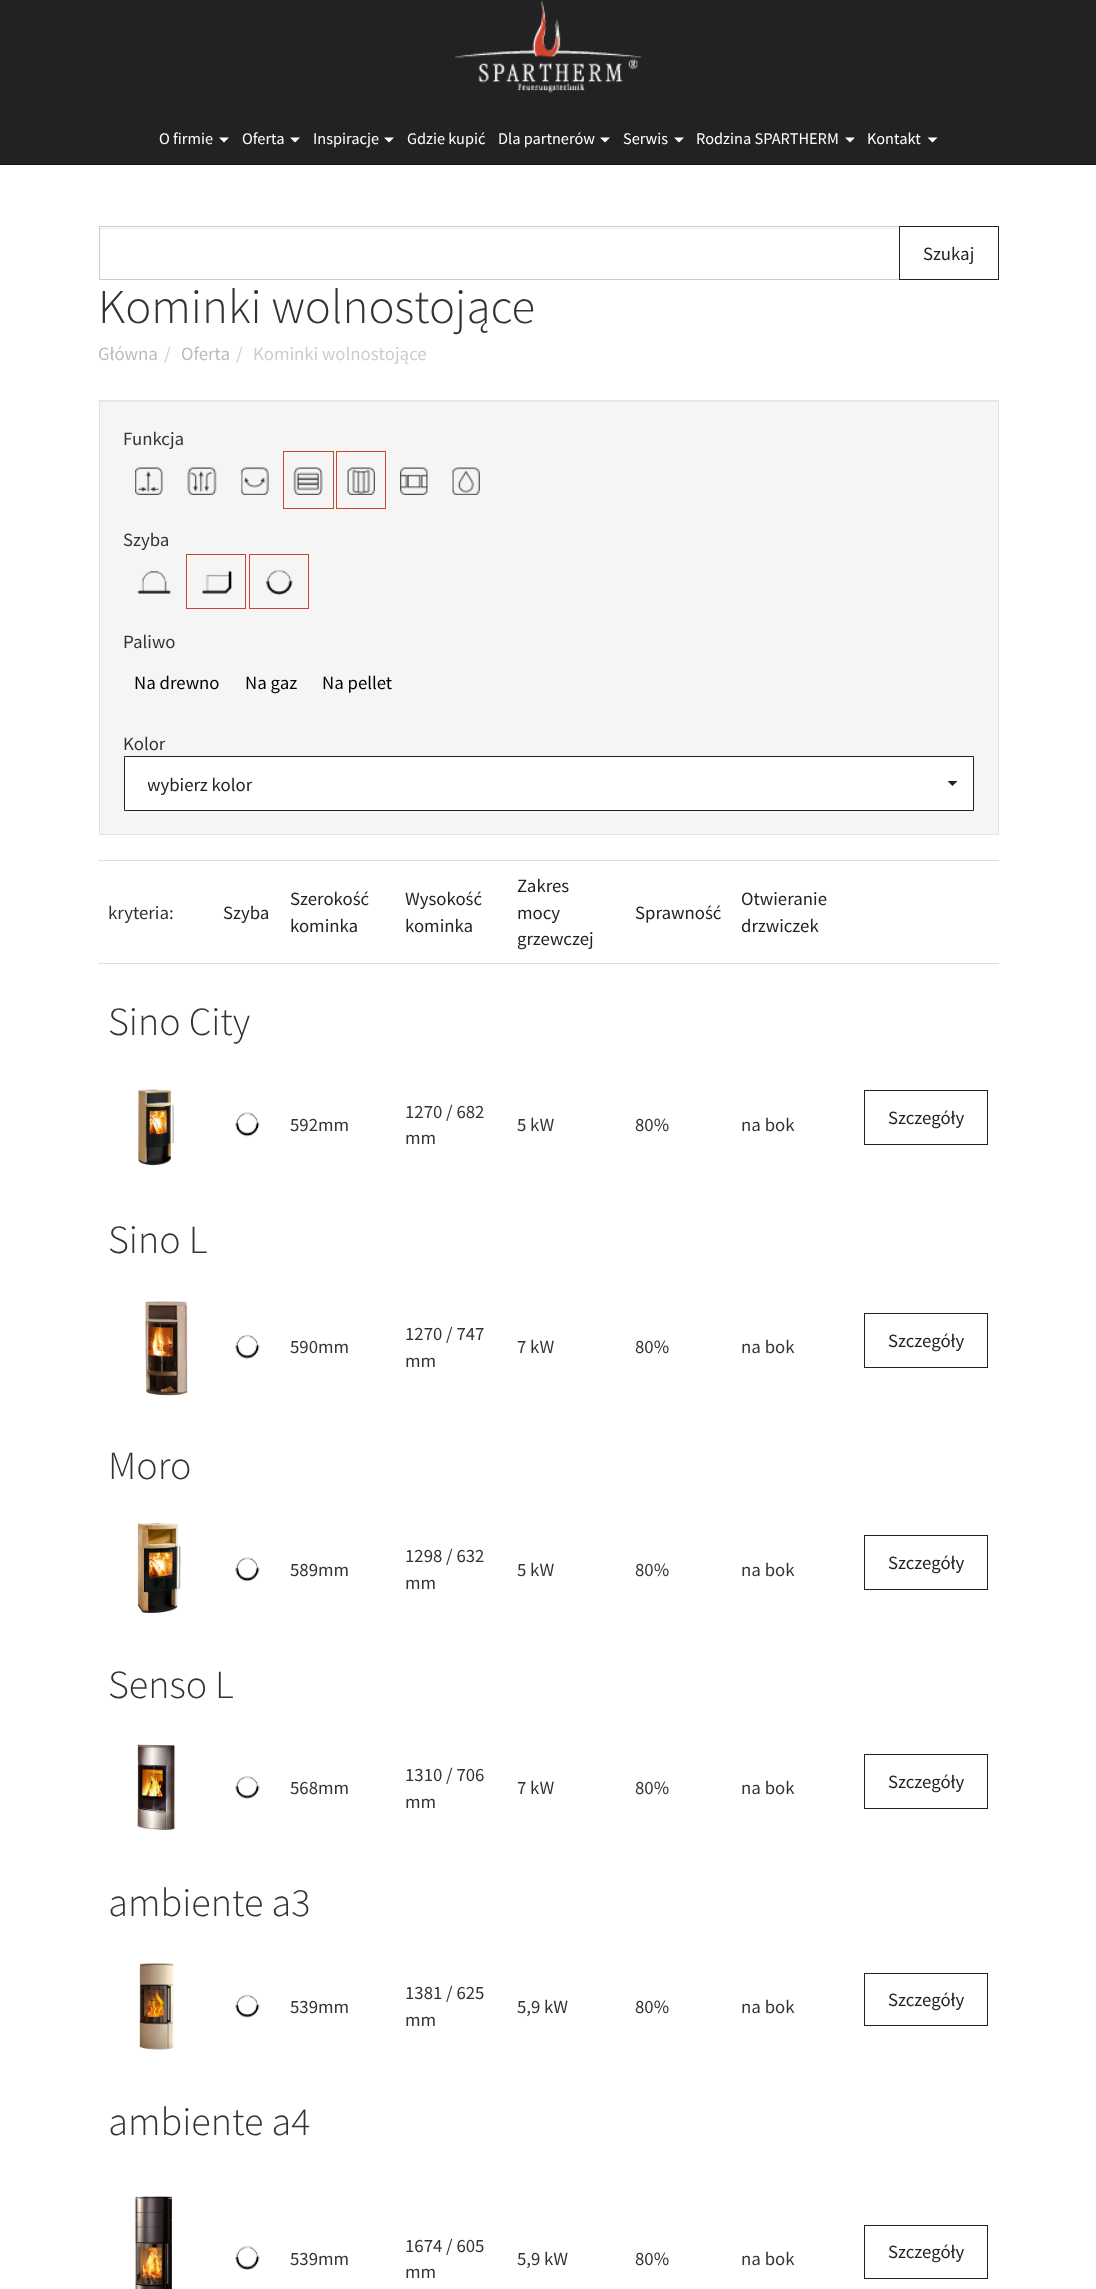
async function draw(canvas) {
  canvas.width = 1096;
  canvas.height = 2289;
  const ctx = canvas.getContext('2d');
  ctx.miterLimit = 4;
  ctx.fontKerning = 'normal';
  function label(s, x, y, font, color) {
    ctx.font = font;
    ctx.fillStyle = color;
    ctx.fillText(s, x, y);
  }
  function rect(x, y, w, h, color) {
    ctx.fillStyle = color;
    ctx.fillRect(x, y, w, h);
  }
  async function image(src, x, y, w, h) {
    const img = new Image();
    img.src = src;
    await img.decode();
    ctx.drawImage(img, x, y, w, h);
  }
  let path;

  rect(0, 0, 1096, 2289, '#fff');
  rect(0, 0, 1096, 164, '#222');
  rect(0, 164, 1096, 1, '#121212');
  await image('assets/img1.png', 455, 0, 187, 93);
  label('O firmie', 159, 144, '16.25px Source Sans Pro', '#fff');
  path = new Path2D('M219 137.5H229L224 142.5Z');
  ctx.fill(path);
  label('Oferta', 242, 144, '16.25px Source Sans Pro', '#fff');
  path = new Path2D('M290 137.5H300L295 142.5Z');
  ctx.fill(path);
  label('Inspiracje', 313, 144, '16.25px Source Sans Pro', '#fff');
  path = new Path2D('M384 137.5H394L389 142.5Z');
  ctx.fill(path);
  label('Gdzie kupić', 407, 144, '16.25px Source Sans Pro', '#fff');
  label('Dla partnerów', 498, 144, '16.25px Source Sans Pro', '#fff');
  path = new Path2D('M600 137.5H610L605 142.5Z');
  ctx.fill(path);
  label('Serwis', 623, 144, '16.25px Source Sans Pro', '#fff');
  path = new Path2D('M674 137.5H684L679 142.5Z');
  ctx.fill(path);
  label('Rodzina SPARTHERM', 696, 144, '16.25px Source Sans Pro', '#fff');
  path = new Path2D('M845 137.5H855L850 142.5Z');
  ctx.fill(path);
  label('Kontakt', 867, 144, '16.25px Source Sans Pro', '#fff');
  path = new Path2D('M927.5 137.5H937.5L932.5 142.5Z');
  ctx.fill(path);
  rect(100, 228, 799, 1, '#ececec');
  ctx.strokeStyle = '#ccc';
  ctx.strokeRect(99.5, 226.5, 800, 53);
  ctx.strokeStyle = '#222';
  ctx.strokeRect(899.5, 226.5, 99, 53);
  label('Szukaj', 923, 260, '18.75px Source Sans Pro', '#222');
  label('Kominki wolnostojące', 98, 323, '300 48.75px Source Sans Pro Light', '#333');
  label('Główna', 98, 360, '18.75px Source Sans Pro', '#bbb');
  label('/', 164, 360, '18.75px Source Sans Pro', '#ccc');
  label('Oferta', 181, 360, '18.75px Source Sans Pro', '#bbb');
  label('/', 236, 360, '18.75px Source Sans Pro', '#ccc');
  label('Kominki wolnostojące', 253, 360, '18.75px Source Sans Pro', '#ccc');
  rect(100, 402, 898, 432, '#f5f5f5');
  rect(100, 401, 898, 1, '#e9e9e9');
  ctx.strokeStyle = '#e3e3e3';
  ctx.strokeRect(99.5, 400.5, 899, 434);
  label('Funkcja', 123, 445, '18.75px Source Sans Pro', '#333');
  await image('assets/img2.png', 135, 467, 28, 28);
  await image('assets/img3.png', 187, 467, 30, 28);
  await image('assets/img4.png', 241, 467, 28, 28);
  ctx.strokeStyle = '#d0432f';
  ctx.strokeRect(283.5, 451.5, 50, 57);
  await image('assets/img5.png', 293, 467, 30, 28);
  ctx.strokeRect(336.5, 451.5, 49, 57);
  await image('assets/img6.png', 347, 467, 28, 28);
  await image('assets/img7.png', 400, 467, 28, 28);
  await image('assets/img8.png', 452, 467, 28, 28);
  label('Szyba', 123, 546, '18.75px Source Sans Pro', '#333');
  await image('assets/img9.png', 137, 571, 35, 23);
  ctx.strokeRect(186.5, 554.5, 59, 54);
  await image('assets/img10.png', 202, 571, 30, 23);
  ctx.strokeRect(249.5, 554.5, 59, 54);
  await image('assets/img11.png', 266, 570, 27, 25);
  label('Paliwo', 123, 648, '18.75px Source Sans Pro', '#333');
  label('Na drewno', 134, 689, '18.75px Source Sans Pro', '#000');
  label('Na gaz', 245, 689, '18.75px Source Sans Pro', '#000');
  label('Na pellet', 322, 689, '18.75px Source Sans Pro', '#000');
  label('Kolor', 123, 750, '18.75px Source Sans Pro', '#333');
  ctx.fillStyle = '#fff';
  ctx.beginPath();
  ctx.rect(124.5, 756.5, 849, 54);
  ctx.fill();
  ctx.strokeStyle = '#222';
  ctx.stroke();
  ctx.save();
  ctx.beginPath();
  ctx.rect(148, 770, 793, 28);
  ctx.clip();
  label('wybierz kolor', 147, 791, '18.75px Source Sans Pro', '#222');
  ctx.restore();
  ctx.fillStyle = '#222';
  path = new Path2D('M947.5 781H957.5L952.5 786Z');
  ctx.fill(path);
  rect(98, 860, 901, 1, '#ddd');
  rect(98, 963, 901, 1, '#ddd');
  label('kryteria:', 108, 919, '18.75px Source Sans Pro', '#333');
  label('Szyba', 223, 919, '18.75px Source Sans Pro', '#222');
  label('Szerokość', 290, 905, '18.75px Source Sans Pro', '#222');
  label('kominka', 290, 932, '18.75px Source Sans Pro', '#222');
  label('Wysokość', 405, 905, '18.75px Source Sans Pro', '#222');
  label('kominka', 405, 932, '18.75px Source Sans Pro', '#222');
  label('Zakres', 517, 892, '18.75px Source Sans Pro', '#222');
  label('mocy', 517, 919, '18.75px Source Sans Pro', '#222');
  label('grzewczej', 517, 945, '18.75px Source Sans Pro', '#222');
  label('Sprawność', 635, 919, '18.75px Source Sans Pro', '#222');
  label('Otwieranie', 741, 905, '18.75px Source Sans Pro', '#222');
  label('drzwiczek', 741, 932, '18.75px Source Sans Pro', '#222');
  label('Sino City', 108, 1035, '300 40px Source Sans Pro Light', '#333');
  await image('assets/img12.png', 138, 1089, 36, 77);
  await image('assets/img13.png', 235, 1112, 25, 25);
  label('592mm', 290, 1131, '18.75px Source Sans Pro', '#333');
  label('1270 / 682', 405, 1118, '18.75px Source Sans Pro', '#333');
  label('mm', 405, 1144, '18.75px Source Sans Pro', '#333');
  label('5 kW', 517, 1131, '18.75px Source Sans Pro', '#333');
  label('80%', 635, 1131, '18.75px Source Sans Pro', '#333');
  label('na bok', 741, 1131, '18.75px Source Sans Pro', '#333');
  ctx.strokeRect(864.5, 1090.5, 123, 54);
  label('Szczegóły', 888, 1124, '18.75px Source Sans Pro', '#222');
  label('Sino L', 108, 1253, '300 40px Source Sans Pro Light', '#333');
  await image('assets/img14.png', 145, 1301, 43, 95);
  await image('assets/img15.png', 235, 1335, 25, 24);
  label('590mm', 290, 1353, '18.75px Source Sans Pro', '#333');
  label('1270 / 747', 405, 1340, '18.75px Source Sans Pro', '#333');
  label('mm', 405, 1367, '18.75px Source Sans Pro', '#333');
  label('7 kW', 517, 1353, '18.75px Source Sans Pro', '#333');
  label('80%', 635, 1353, '18.75px Source Sans Pro', '#333');
  label('na bok', 741, 1353, '18.75px Source Sans Pro', '#333');
  ctx.strokeRect(864.5, 1313.5, 123, 54);
  label('Szczegóły', 888, 1347, '18.75px Source Sans Pro', '#222');
  label('Moro', 108, 1479, '300 40px Source Sans Pro Light', '#333');
  await image('assets/img16.png', 137, 1523, 44, 90);
  await image('assets/img17.png', 235, 1557, 25, 25);
  label('589mm', 290, 1576, '18.75px Source Sans Pro', '#333');
  label('1298 / 632', 405, 1562, '18.75px Source Sans Pro', '#333');
  label('mm', 405, 1589, '18.75px Source Sans Pro', '#333');
  label('5 kW', 517, 1576, '18.75px Source Sans Pro', '#333');
  label('80%', 635, 1576, '18.75px Source Sans Pro', '#333');
  label('na bok', 741, 1576, '18.75px Source Sans Pro', '#333');
  ctx.strokeRect(864.5, 1535.5, 123, 54);
  label('Szczegóły', 888, 1569, '18.75px Source Sans Pro', '#222');
  label('Senso L', 108, 1698, '300 40px Source Sans Pro Light', '#333');
  await image('assets/img18.png', 137, 1744, 39, 86);
  await image('assets/img19.png', 235, 1776, 25, 23);
  label('568mm', 290, 1794, '18.75px Source Sans Pro', '#333');
  label('1310 / 706', 405, 1781, '18.75px Source Sans Pro', '#333');
  label('mm', 405, 1808, '18.75px Source Sans Pro', '#333');
  label('7 kW', 517, 1794, '18.75px Source Sans Pro', '#333');
  label('80%', 635, 1794, '18.75px Source Sans Pro', '#333');
  label('na bok', 741, 1794, '18.75px Source Sans Pro', '#333');
  ctx.strokeRect(864.5, 1754.5, 123, 54);
  label('Szczegóły', 888, 1788, '18.75px Source Sans Pro', '#222');
  label('ambiente a3', 108, 1916, '300 40px Source Sans Pro Light', '#333');
  await image('assets/img20.png', 139, 1963, 35, 87);
  await image('assets/img21.png', 235, 1995, 25, 23);
  label('539mm', 290, 2013, '18.75px Source Sans Pro', '#333');
  label('1381 / 625', 405, 1999, '18.75px Source Sans Pro', '#333');
  label('mm', 405, 2026, '18.75px Source Sans Pro', '#333');
  label('5,9 kW', 517, 2013, '18.75px Source Sans Pro', '#333');
  label('80%', 635, 2013, '18.75px Source Sans Pro', '#333');
  label('na bok', 741, 2013, '18.75px Source Sans Pro', '#333');
  ctx.strokeRect(864.5, 1973.5, 123, 52);
  label('Szczegóły', 888, 2006, '18.75px Source Sans Pro', '#222');
  label('ambiente a4', 108, 2135, '300 40px Source Sans Pro Light', '#333');
  await image('assets/img22.png', 134, 2196, 38, 93);
  await image('assets/img23.png', 235, 2246, 25, 24);
  label('539mm', 290, 2265, '18.75px Source Sans Pro', '#333');
  label('1674 / 605', 405, 2252, '18.75px Source Sans Pro', '#333');
  label('mm', 405, 2278, '18.75px Source Sans Pro', '#333');
  label('5,9 kW', 517, 2265, '18.75px Source Sans Pro', '#333');
  label('80%', 635, 2265, '18.75px Source Sans Pro', '#333');
  label('na bok', 741, 2265, '18.75px Source Sans Pro', '#333');
  ctx.strokeRect(864.5, 2225.5, 123, 53);
  label('Szczegóły', 888, 2258, '18.75px Source Sans Pro', '#222');
}

draw(document.querySelector('canvas'));
